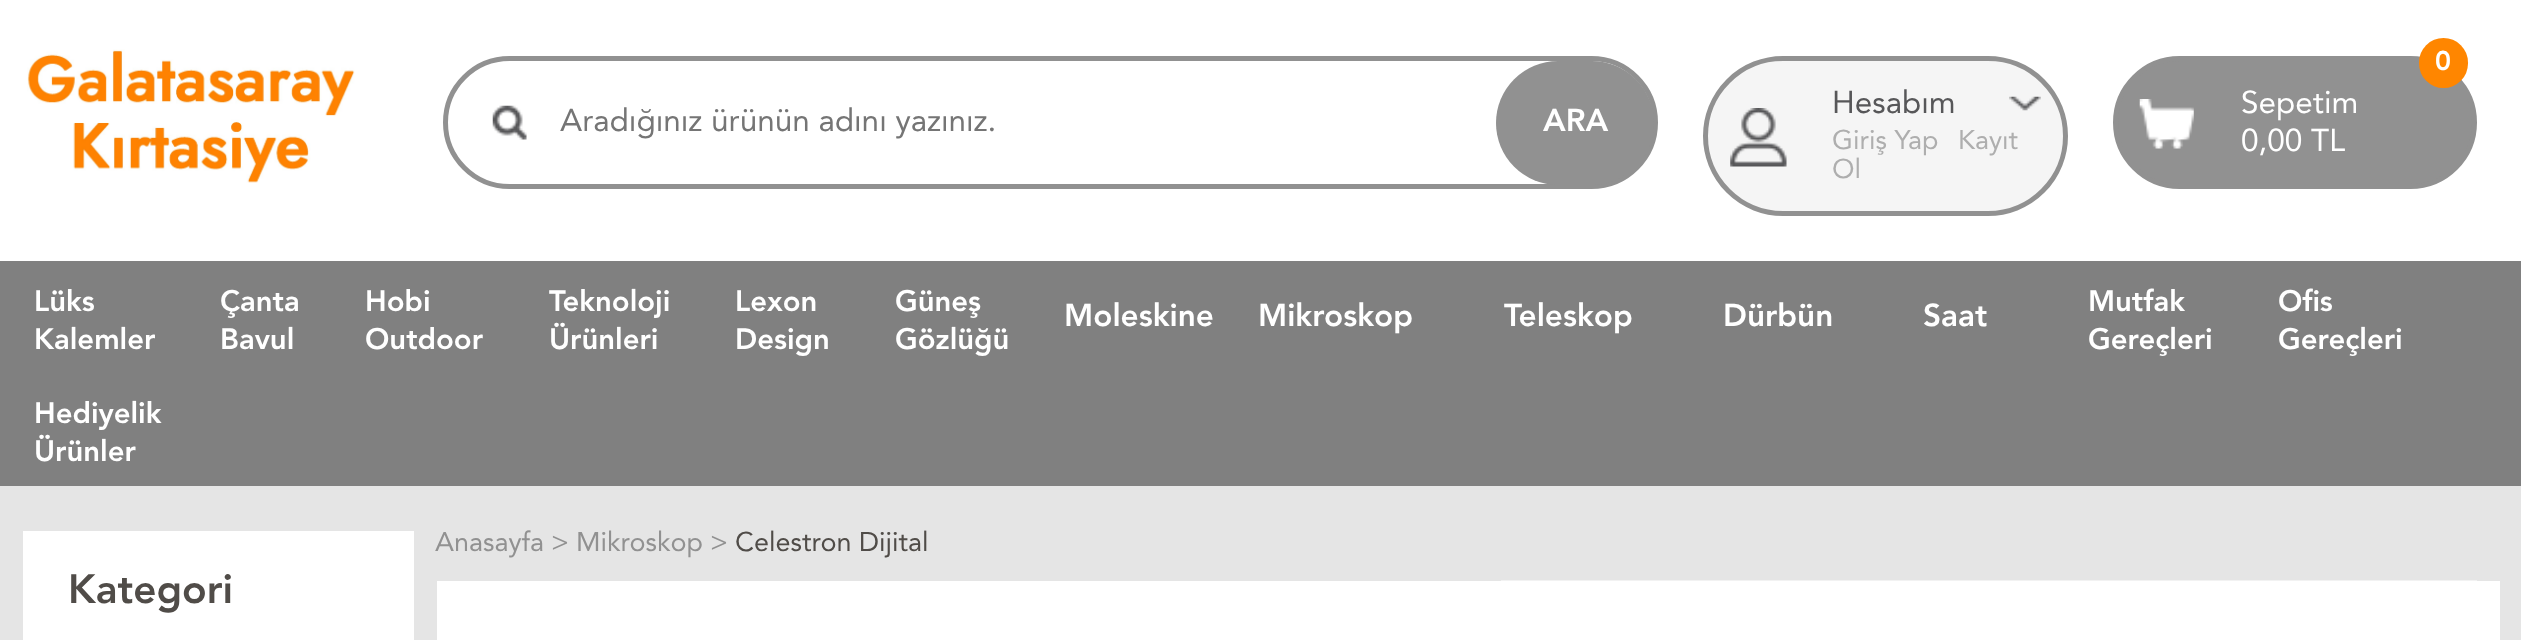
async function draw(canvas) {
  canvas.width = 2521;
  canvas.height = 640;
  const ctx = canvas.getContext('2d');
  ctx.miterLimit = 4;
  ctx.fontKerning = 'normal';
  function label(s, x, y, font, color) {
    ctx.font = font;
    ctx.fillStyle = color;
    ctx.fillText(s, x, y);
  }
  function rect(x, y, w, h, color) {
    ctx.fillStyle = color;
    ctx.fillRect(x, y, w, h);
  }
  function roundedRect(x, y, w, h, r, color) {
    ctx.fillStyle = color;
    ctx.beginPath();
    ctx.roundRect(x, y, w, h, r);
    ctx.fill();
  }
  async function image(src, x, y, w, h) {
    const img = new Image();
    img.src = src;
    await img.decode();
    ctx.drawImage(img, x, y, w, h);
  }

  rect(0, 0, 2521, 640, '#e5e5e5');
  rect(0, 0, 2521, 261, '#fff');
  await image('assets/img1.png', 27, 49, 328, 134);
  ctx.beginPath();
  ctx.roundRect(445.5, 58.5, 1210, 128, 64);
  ctx.strokeStyle = '#919191';
  ctx.lineWidth = 5;
  ctx.stroke();
  await image('assets/img2.png', 492, 105, 35, 35);
  label('Aradığınız ürünün adını yazınız.', 560, 131, '31.5px "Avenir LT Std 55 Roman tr"', '#757575');
  roundedRect(1496, 61, 158, 124, 62, '#919191');
  label('ARA', 1543, 131, 'bold 31.5px "Avenir LT Std 55 Roman tr"', '#fff');
  ctx.fillStyle = '#f5f5f5';
  ctx.beginPath();
  ctx.roundRect(1705.5, 58.5, 360, 155, 77.5);
  ctx.fill();
  ctx.stroke();
  await image('assets/img3.png', 1730, 108, 57, 59);
  await image('assets/img4.png', 2009, 96, 32, 15);
  label('Hesabım', 1832, 113, '31.5px "Avenir LT Std 55 Roman tr"', '#575759');
  label('Giriş Yap', 1832, 149, '27px "Avenir LT Std 55 Roman tr"', '#aeaeae');
  label('Kayıt', 1958, 149, '27px "Avenir LT Std 55 Roman tr"', '#aeaeae');
  label('Ol', 1832, 178, '27px "Avenir LT Std 55 Roman tr"', '#aeaeae');
  ctx.fillStyle = '#919191';
  ctx.beginPath();
  ctx.roundRect(2115.5, 58.5, 359, 128, 64);
  ctx.fill();
  ctx.stroke();
  roundedRect(2419, 38, 49, 50, 24.5, '#ff8600');
  label('0', 2435, 70, 'bold 27px "Avenir LT Std 55 Roman tr"', '#fff');
  await image('assets/img5.png', 2139, 99, 55, 50);
  label('Sepetim', 2241, 113, '31.5px "Avenir LT Std 55 Roman tr"', '#fff');
  label('0,00 TL', 2241, 151, '31.5px "Avenir LT Std 55 Roman tr"', '#fff');
  rect(0, 261, 2521, 225, '#808080');
  label('Lüks', 34, 311, 'bold 29.25px "Avenir LT Std 55 Roman tr"', '#fff');
  label('Kalemler', 34, 349, 'bold 29.25px "Avenir LT Std 55 Roman tr"', '#fff');
  label('Çanta', 220, 311, 'bold 29.25px "Avenir LT Std 55 Roman tr"', '#fff');
  label('Bavul', 220, 349, 'bold 29.25px "Avenir LT Std 55 Roman tr"', '#fff');
  label('Hobi', 365, 311, 'bold 29.25px "Avenir LT Std 55 Roman tr"', '#fff');
  label('Outdoor', 365, 349, 'bold 29.25px "Avenir LT Std 55 Roman tr"', '#fff');
  label('Teknoloji', 549, 311, 'bold 29.25px "Avenir LT Std 55 Roman tr"', '#fff');
  label('Ürünleri', 549, 349, 'bold 29.25px "Avenir LT Std 55 Roman tr"', '#fff');
  label('Lexon', 735, 311, 'bold 29.25px "Avenir LT Std 55 Roman tr"', '#fff');
  label('Design', 735, 349, 'bold 29.25px "Avenir LT Std 55 Roman tr"', '#fff');
  label('Güneş', 895, 311, 'bold 29.25px "Avenir LT Std 55 Roman tr"', '#fff');
  label('Gözlüğü', 895, 349, 'bold 29.25px "Avenir LT Std 55 Roman tr"', '#fff');
  label('Moleskine', 1064, 326, 'bold 31.5px "Avenir LT Std 55 Roman tr"', '#fff');
  label('Mikroskop', 1258, 326, 'bold 31.5px "Avenir LT Std 55 Roman tr"', '#fff');
  label('Teleskop', 1504, 326, 'bold 31.5px "Avenir LT Std 55 Roman tr"', '#fff');
  label('Dürbün', 1723, 326, 'bold 31.5px "Avenir LT Std 55 Roman tr"', '#fff');
  label('Saat', 1923, 326, 'bold 31.5px "Avenir LT Std 55 Roman tr"', '#fff');
  label('Mutfak', 2088, 311, 'bold 29.25px "Avenir LT Std 55 Roman tr"', '#fff');
  label('Gereçleri', 2088, 349, 'bold 29.25px "Avenir LT Std 55 Roman tr"', '#fff');
  label('Ofis', 2278, 311, 'bold 29.25px "Avenir LT Std 55 Roman tr"', '#fff');
  label('Gereçleri', 2278, 349, 'bold 29.25px "Avenir LT Std 55 Roman tr"', '#fff');
  label('Hediyelik', 34, 423, 'bold 29.25px "Avenir LT Std 55 Roman tr"', '#fff');
  label('Ürünler', 34, 461, 'bold 29.25px "Avenir LT Std 55 Roman tr"', '#fff');
  label('Anasayfa', 435, 551, '27px "Avenir LT Std 55 Roman tr"', '#919191');
  label('>', 551, 551, '27px "Avenir LT Std 55 Roman tr"', '#919191');
  label('Mikroskop', 576, 551, '27px "Avenir LT Std 55 Roman tr"', '#919191');
  label('>', 710, 551, '27px "Avenir LT Std 55 Roman tr"', '#919191');
  label('Celestron Dijital', 735, 551, '27px "Avenir LT Std 55 Roman tr"', '#504c48');
  rect(437, 581, 2063, 59, '#fff');
  rect(1501, 580, 976, 1, '#f2f2f2');
  rect(23, 531, 391, 109, '#fff');
  label('Kategori', 68, 603, 'bold 40.5px "Avenir LT Std 55 Roman tr"', '#504c48');
}

draw(document.querySelector('canvas'));
